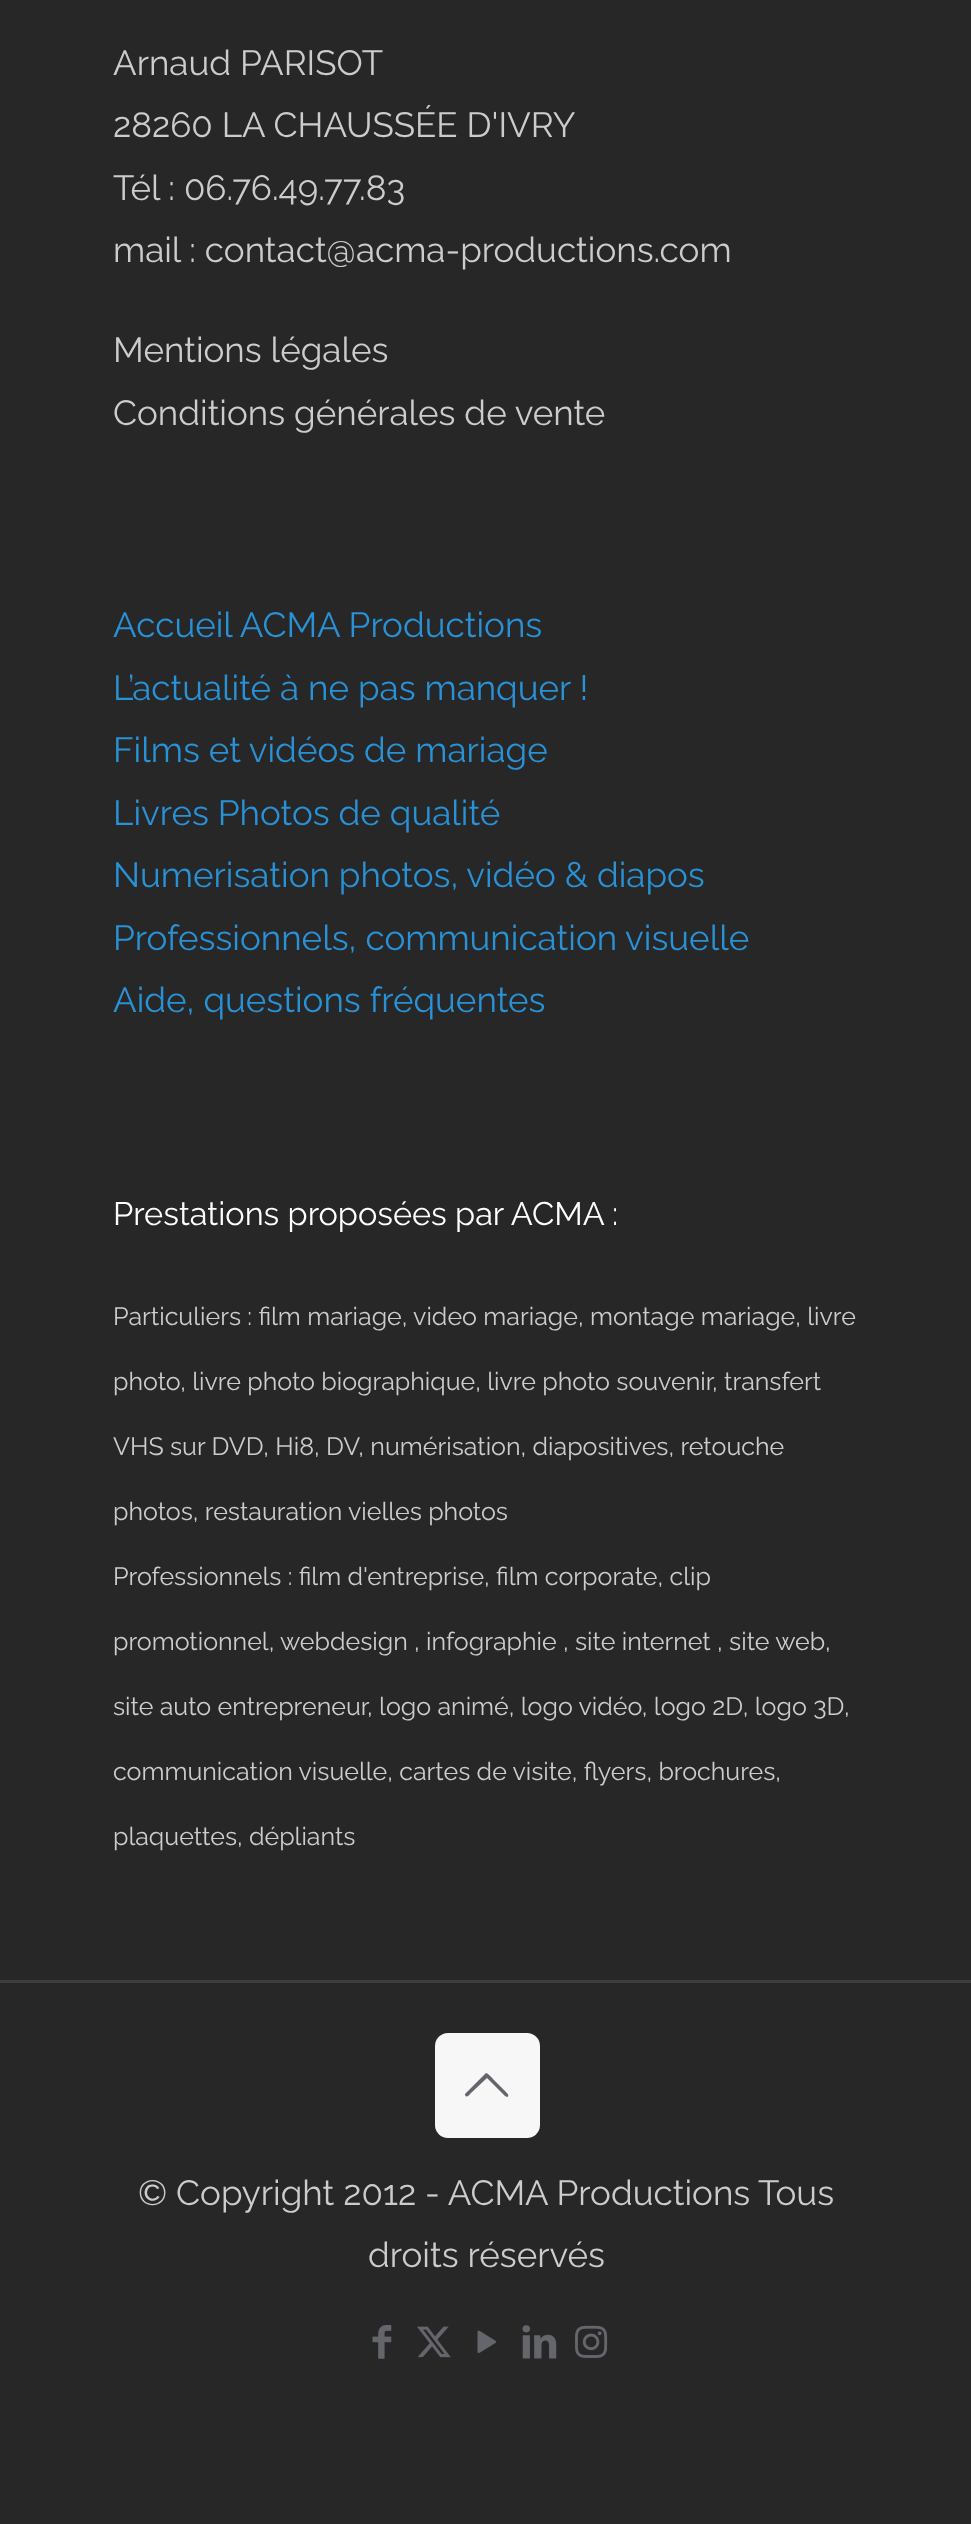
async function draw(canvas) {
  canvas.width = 971;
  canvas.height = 2524;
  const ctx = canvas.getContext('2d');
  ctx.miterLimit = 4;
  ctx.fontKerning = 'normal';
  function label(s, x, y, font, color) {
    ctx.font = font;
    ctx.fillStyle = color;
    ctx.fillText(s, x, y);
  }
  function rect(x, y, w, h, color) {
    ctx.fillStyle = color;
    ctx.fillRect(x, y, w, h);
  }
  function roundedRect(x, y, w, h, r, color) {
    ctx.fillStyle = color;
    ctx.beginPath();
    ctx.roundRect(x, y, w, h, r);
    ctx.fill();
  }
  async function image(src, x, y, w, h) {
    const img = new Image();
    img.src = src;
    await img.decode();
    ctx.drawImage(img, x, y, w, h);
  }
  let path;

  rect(0, 0, 971, 2524, '#272727');
  label('Arnaud PARISOT', 113, 75, '35px Raleway', '#ccc');
  label('28260 LA CHAUSSÉE D\'IVRY', 113, 137, '35px Raleway', '#ccc');
  label('Tél : 06.76.49.77.83', 113, 200, '35px Raleway', '#ccc');
  label('mail : contact@acma-productions.com', 113, 262, '35px Raleway', '#ccc');
  label('Mentions légales', 113, 362, '35px Raleway', '#ccc');
  label('Conditions générales de vente', 113, 425, '35px Raleway', '#ccc');
  label('Accueil ACMA Productions', 113, 637, '35px Raleway', '#2991d6');
  label('L’actualité à ne pas manquer !', 113, 700, '35px Raleway', '#2991d6');
  label('Films et vidéos de mariage', 113, 762, '35px Raleway', '#2991d6');
  label('Livres Photos de qualité', 113, 825, '35px Raleway', '#2991d6');
  label('Numerisation photos, vidéo & diapos', 113, 887, '35px Raleway', '#2991d6');
  label('Professionnels, communication visuelle', 113, 950, '35px Raleway', '#2991d6');
  label('Aide, questions fréquentes', 113, 1012, '35px Raleway', '#2991d6');
  label('Prestations proposées par ACMA :', 113, 1225, '32.5px Raleway', '#fff');
  label('Particuliers : film mariage, video mariage, montage mariage, livre', 113, 1325, '25px Raleway', '#ccc');
  label('photo, livre photo biographique, livre photo souvenir, transfert', 113, 1390, '25px Raleway', '#ccc');
  label('VHS sur DVD, Hi8, DV, numérisation, diapositives, retouche', 113, 1455, '25px Raleway', '#ccc');
  label('photos, restauration vielles photos', 113, 1520, '25px Raleway', '#ccc');
  label('Professionnels : film d\'entreprise, film corporate, clip', 113, 1585, '25px Raleway', '#ccc');
  label('promotionnel, webdesign , infographie , site internet , site web,', 113, 1650, '25px Raleway', '#ccc');
  label('site auto entrepreneur, logo animé, logo vidéo, logo 2D, logo 3D,', 113, 1715, '25px Raleway', '#ccc');
  label('communication visuelle, cartes de visite, flyers, brochures,', 113, 1780, '25px Raleway', '#ccc');
  label('plaquettes, dépliants', 113, 1845, '25px Raleway', '#ccc');
  rect(0, 1980, 971, 3, '#3d3d3d');
  roundedRect(435, 2033, 105, 105, 13, '#f7f7f7');
  ctx.fillStyle = '#65666c';
  path = new Path2D('M505 2096L487 2078L471 2093C470 2094 467 2099 465 2095V2094L486 2073C488 2073 493 2079 494 2080L504 2090C505 2091 511 2096 507 2097Z');
  ctx.fill(path);
  label('© Copyright 2012 - ACMA Productions Tous', 138, 2205, '35px Raleway', '#ccc');
  label('droits réservés', 368, 2267, '35px Raleway', '#ccc');
  await image('assets/img1.png', 372, 2325, 20, 34);
  await image('assets/img2.png', 417, 2326, 34, 32);
  await image('assets/img3.png', 477, 2330, 20, 23);
  await image('assets/img4.png', 522, 2325, 35, 34);
  await image('assets/img5.png', 575, 2325, 33, 33);
}

draw(document.querySelector('canvas'));
